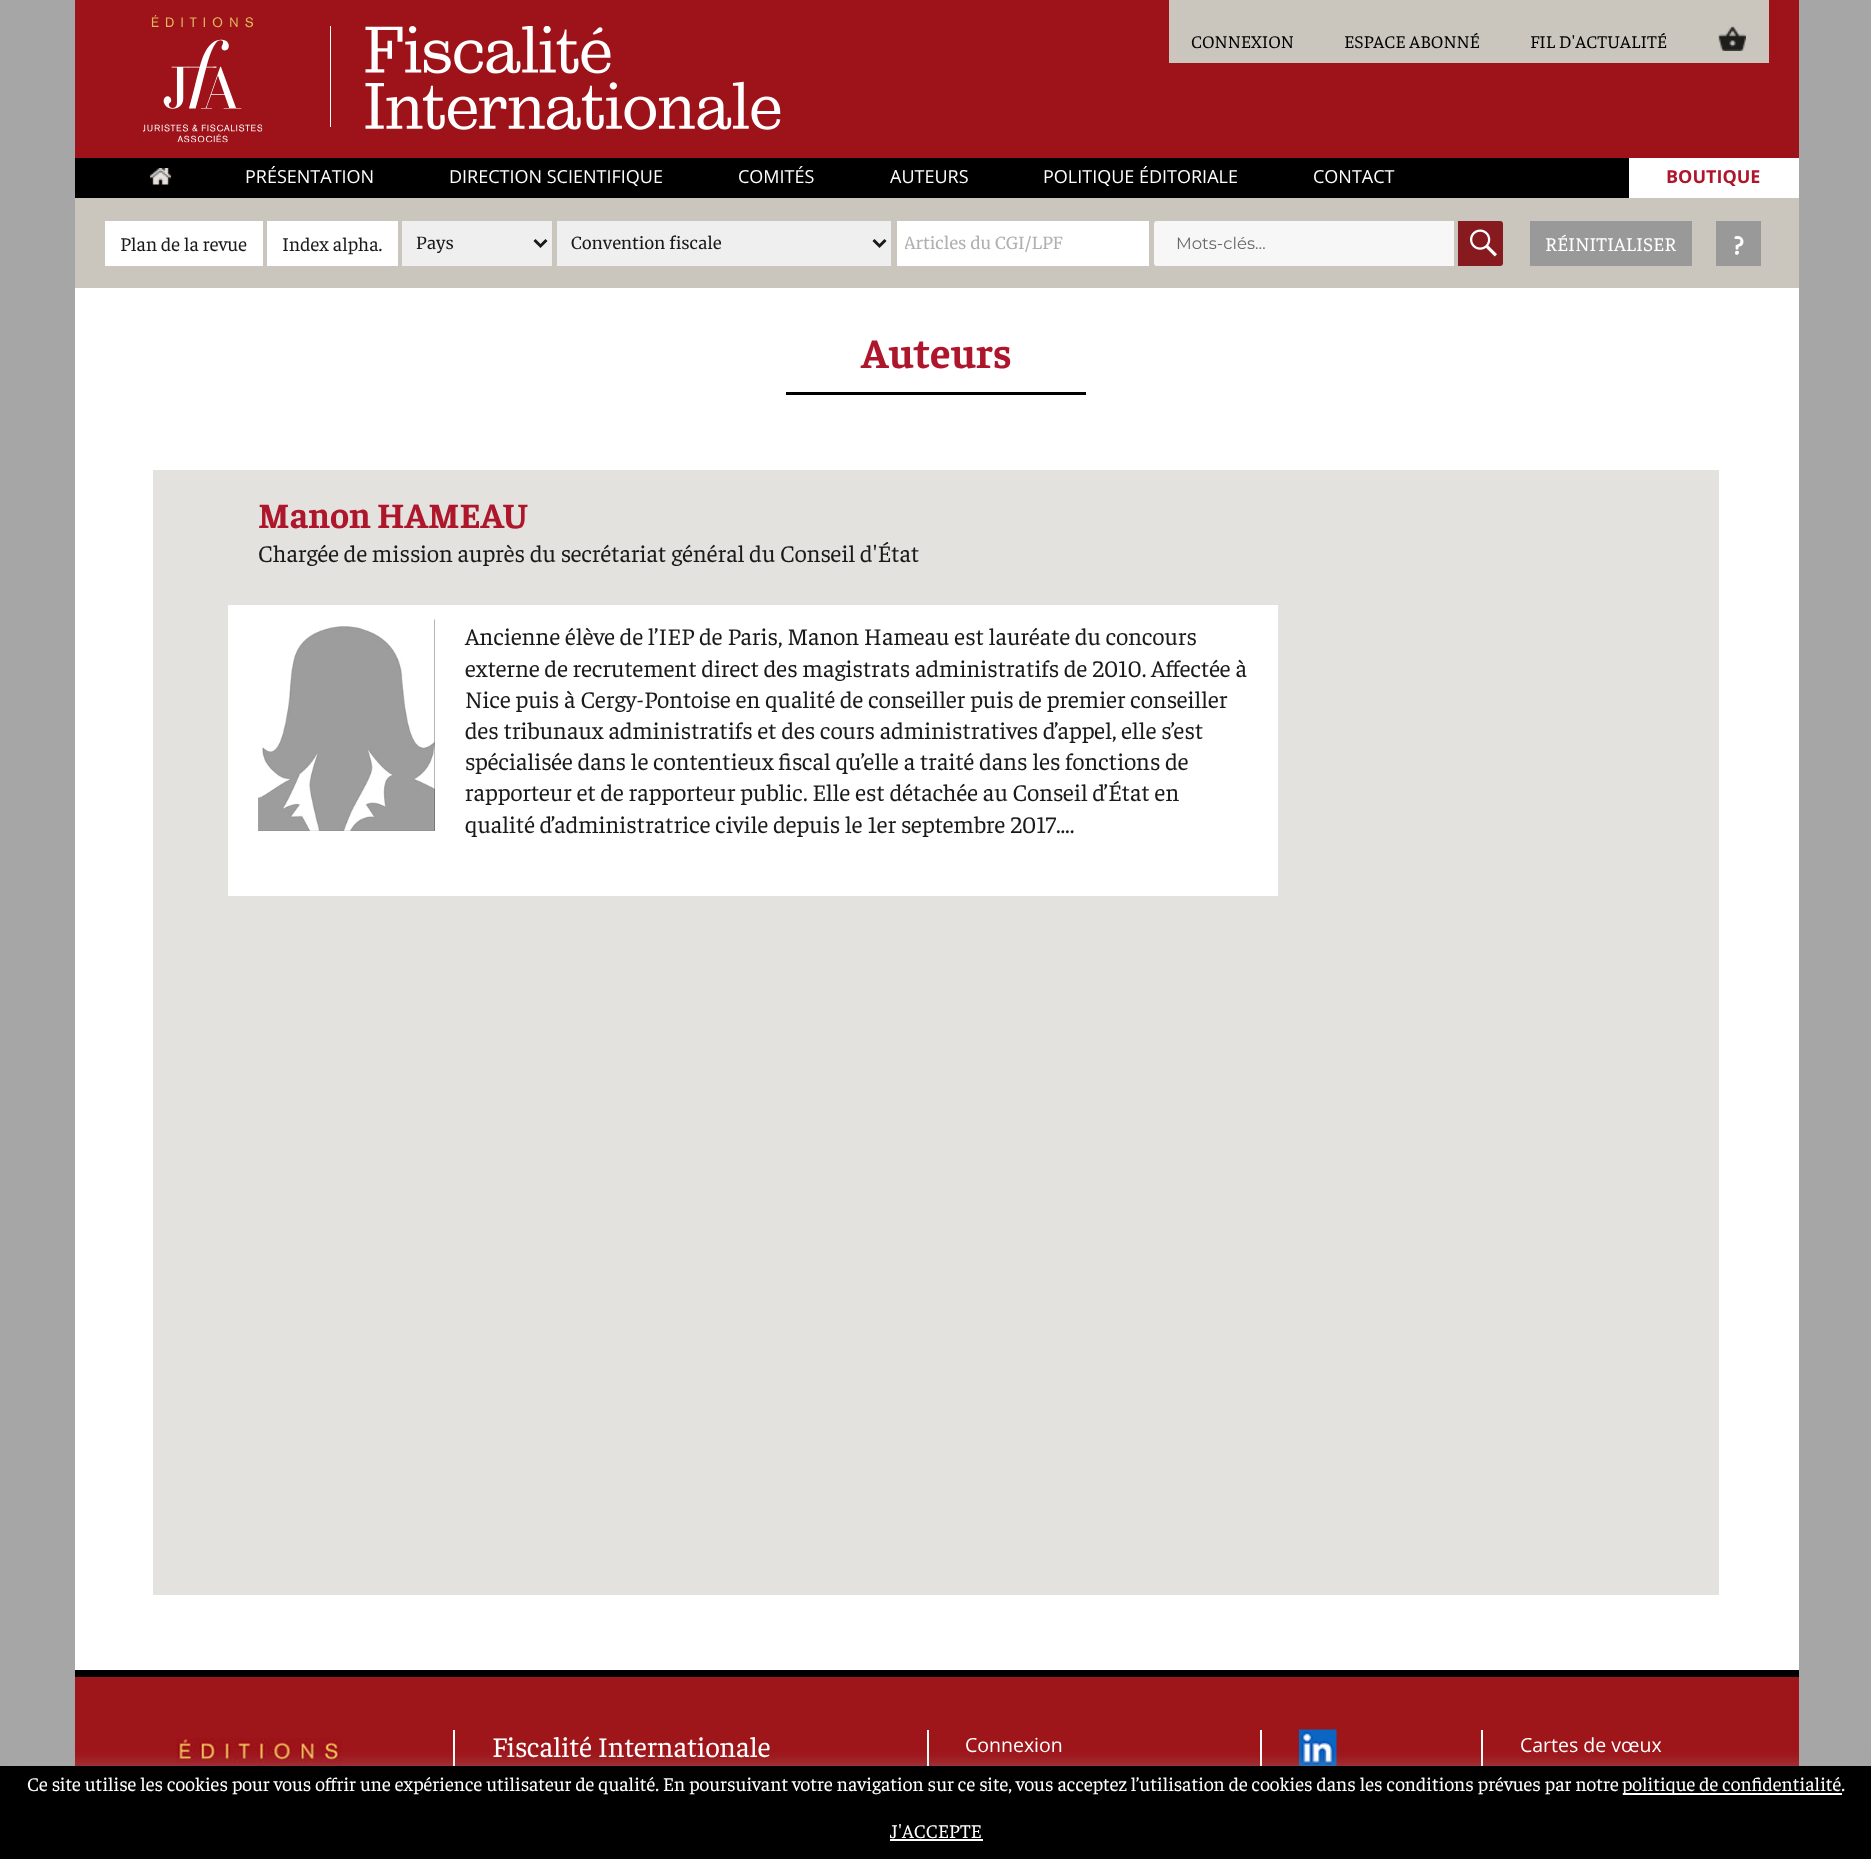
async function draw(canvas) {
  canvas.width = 1871;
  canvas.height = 1859;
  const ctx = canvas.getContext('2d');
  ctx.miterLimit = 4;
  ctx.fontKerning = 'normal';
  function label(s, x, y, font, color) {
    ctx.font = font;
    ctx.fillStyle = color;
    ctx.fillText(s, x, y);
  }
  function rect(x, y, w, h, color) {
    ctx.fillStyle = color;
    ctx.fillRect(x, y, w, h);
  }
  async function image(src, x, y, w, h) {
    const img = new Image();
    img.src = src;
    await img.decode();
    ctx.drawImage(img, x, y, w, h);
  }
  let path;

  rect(0, 0, 1871, 1859, '#a6a6a6');
  rect(75, 288, 1724, 1382, '#fff');
  rect(75, 0, 1724, 158, '#9e1319');
  await image('assets/img1.png', 143, 15, 120, 128);
  await image('assets/img2.png', 330, 26, 451, 104);
  rect(1169, 0, 600, 63, '#cac6be');
  label('CONNEXION', 1191, 48, '18px Faustina', '#000');
  label('ESPACE ABONNÉ', 1344, 48, '18px Faustina', '#000');
  label('FIL D\'ACTUALITÉ', 1530, 48, '18px Faustina', '#000');
  await image('assets/img3.png', 1718, 26, 28, 25);
  rect(75, 158, 1554, 40, '#000');
  await image('assets/img4.png', 150, 168, 21, 17);
  label('PRÉSENTATION', 245, 183, '18px Open Sans', '#fff');
  label('DIRECTION SCIENTIFIQUE', 449, 183, '18px Open Sans', '#fff');
  label('COMITÉS', 738, 183, '18px Open Sans', '#fff');
  label('AUTEURS', 890, 183, '18px Open Sans', '#fff');
  label('POLITIQUE ÉDITORIALE', 1043, 183, '18px Open Sans', '#fff');
  label('CONTACT', 1313, 183, '18px Open Sans', '#fff');
  rect(1629, 158, 170, 40, '#fff');
  label('BOUTIQUE', 1666, 183, 'bold 18px Open Sans', '#ae172b');
  rect(75, 198, 1724, 90, '#cac6be');
  rect(105, 221, 158, 45, '#fff');
  label('Plan de la revue', 120, 251, '19.5px Faustina', '#1a1a1a');
  rect(267, 221, 131, 45, '#fff');
  label('Index alpha.', 282, 251, '19.5px Faustina', '#1a1a1a');
  rect(402, 221, 150, 45, '#efefef');
  path = new Path2D('M534.5 240L540.5 246L546.5 240');
  ctx.strokeStyle = '#1a1a1a';
  ctx.lineWidth = 3;
  ctx.stroke(path);
  label('Pays', 416, 249, '16.5px Merriweather', '#1a1a1a');
  rect(557, 221, 334, 45, '#efefef');
  path = new Path2D('M873.5 240L879.5 246L885.5 240');
  ctx.stroke(path);
  label('Convention fiscale', 571, 249, '16.5px Merriweather', '#1a1a1a');
  rect(897, 221, 252, 45, '#fff');
  ctx.save();
  ctx.beginPath();
  ctx.rect(905, 233, 237, 21);
  ctx.clip();
  label('Articles du CGI/LPF', 904, 249, '16.5px Merriweather', '#b0b0b0');
  ctx.restore();
  ctx.fillStyle = '#f7f7f7';
  ctx.beginPath();
  ctx.roundRect(1154, 221, 300, 45, [3, 0, 0, 3]);
  ctx.fill();
  label('Mots-clés…', 1176, 249, '100 16.5px Montserrat', '#686868');
  ctx.fillStyle = '#871a1f';
  ctx.beginPath();
  ctx.roundRect(1458, 221, 45, 45, [0, 3, 3, 0]);
  ctx.fill();
  await image('assets/img5.png', 1470, 229, 27, 28);
  rect(1530, 221, 162, 45, '#999');
  label('RÉINITIALISER', 1545, 251, '19.5px Faustina', '#fff');
  rect(1716, 221, 45, 45, '#999');
  label('?', 1734, 254, 'bold 27px Faustina', '#fff');
  label('Auteurs', 861, 368, 'bold 42px Faustina', '#ae172b');
  rect(786, 392, 300, 3, '#000');
  rect(153, 470, 1566, 1125, '#e4e2de');
  label('Manon HAMEAU', 258, 528, 'bold 36px Faustina', '#ae172b');
  label('Chargée de mission auprès du secrétariat général du Conseil d\'État', 258, 562, '24px Faustina', '#1a1a1a');
  rect(228, 605, 1050, 291, '#fff');
  await image('assets/img6.png', 258, 619, 177, 212);
  label('Ancienne élève de l’IEP de Paris, Manon Hameau est lauréate du concours', 465, 645, '24px Faustina', '#1a1a1a');
  label('externe de recrutement direct des magistrats administratifs de 2010. Affectée à', 465, 677, '24px Faustina', '#1a1a1a');
  label('Nice puis à Cergy-Pontoise en qualité de conseiller puis de premier conseiller', 465, 708, '24px Faustina', '#1a1a1a');
  label('des tribunaux administratifs et des cours administratives d’appel, elle s’est', 465, 739, '24px Faustina', '#1a1a1a');
  label('spécialisée dans le contentieux fiscal qu’elle a traité dans les fonctions de', 465, 770, '24px Faustina', '#1a1a1a');
  label('rapporteur et de rapporteur public. Elle est détachée au Conseil d’État en', 465, 801, '24px Faustina', '#1a1a1a');
  label('qualité d’administratrice civile depuis le 1er septembre 2017....', 465, 833, '24px Faustina', '#1a1a1a');
  rect(75, 1677, 1724, 89, '#9e151a');
  await image('assets/img7.png', 176, 1738, 166, 28);
  rect(75, 1670, 1724, 7, '#000');
  rect(453, 1730, 2, 36, '#fff');
  label('Fiscalité Internationale', 492, 1757, '28.5px Faustina', '#fff');
  rect(927, 1730, 2, 36, '#fff');
  label('Connexion', 965, 1752, '19.5px Open Sans', '#fff');
  rect(1260, 1730, 2, 36, '#fff');
  await image('assets/img8.png', 1299, 1729, 38, 37);
  rect(1481, 1730, 2, 36, '#fff');
  label('Cartes de vœux', 1520, 1752, '19.5px Open Sans', '#fff');
  ctx.fillStyle = '#acabab4d';
  ctx.filter = 'blur(7.5px)';
  ctx.beginPath();
  ctx.rect(0, 1764, 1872, 95);
  ctx.fill();
  ctx.filter = 'none';
  rect(0, 1766, 1871, 93, '#000');
  label('Ce site utilise les cookies pour vous offrir une expérience utilisateur de qualité. En poursuivant votre navigation sur ce site, vous acceptez l’utilisation de cookies dans les conditions prévues par notre', 27, 1791, '19.5px Faustina', '#fff');
  rect(1623, 1793, 219, 2, '#fff');
  label('politique de confidentialité.', 1622, 1791, '19.5px Faustina', '#fff');
  label('J\'ACCEPTE', 890, 1838, '19.5px Faustina', '#fff');
  rect(890, 1839, 93, 2, '#fff');
}

draw(document.querySelector('canvas'));
